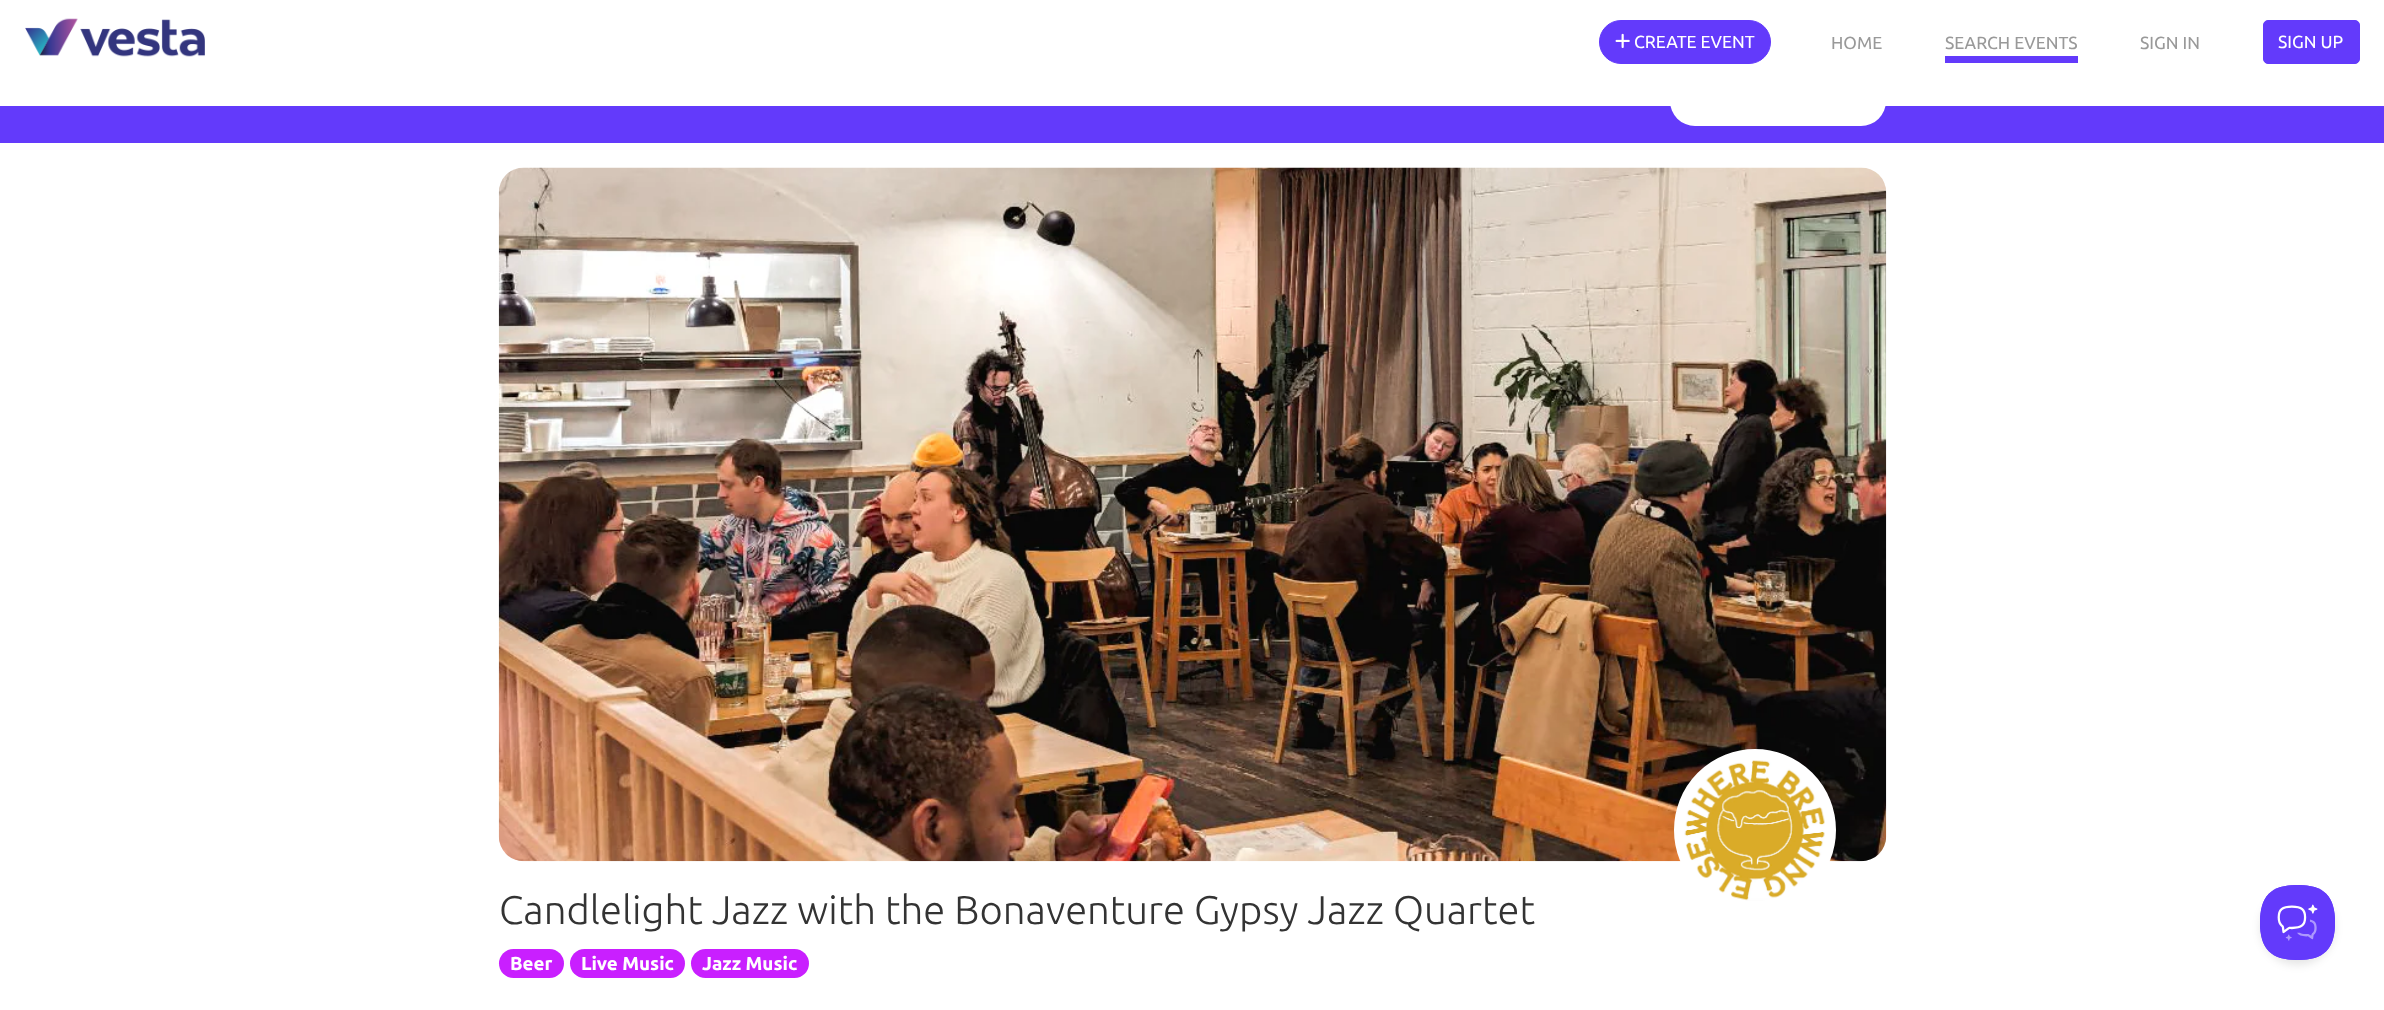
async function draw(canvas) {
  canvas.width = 2384;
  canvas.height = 1010;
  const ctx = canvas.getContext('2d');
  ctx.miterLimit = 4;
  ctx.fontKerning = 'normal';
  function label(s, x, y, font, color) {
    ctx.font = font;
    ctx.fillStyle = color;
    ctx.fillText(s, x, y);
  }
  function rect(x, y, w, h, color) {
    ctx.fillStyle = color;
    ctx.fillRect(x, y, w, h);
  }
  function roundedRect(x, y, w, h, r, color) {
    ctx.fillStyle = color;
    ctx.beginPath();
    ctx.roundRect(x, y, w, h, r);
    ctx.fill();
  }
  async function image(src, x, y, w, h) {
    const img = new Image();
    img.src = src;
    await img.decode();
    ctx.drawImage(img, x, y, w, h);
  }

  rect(0, 0, 2384, 1010, '#fff');
  await image('assets/img1.png', 25, 18, 180, 39);
  ctx.fillStyle = '#633afb';
  ctx.beginPath();
  ctx.roundRect(1599.5, 20.5, 171, 43, 21.5);
  ctx.fill();
  ctx.strokeStyle = '#633afb';
  ctx.stroke();
  await image('assets/img2.png', 1615, 33, 15, 15);
  label('CREATE EVENT', 1634, 48, '17.5px Ubuntu', '#fff');
  label('HOME', 1831, 49, '17.5px Ubuntu', '#999');
  rect(1945, 56, 133, 7, '#633afb');
  label('SEARCH EVENTS', 1945, 49, '17.5px Ubuntu', '#999');
  label('SIGN IN', 2140, 49, '17.5px Ubuntu', '#999');
  ctx.fillStyle = '#633afb';
  ctx.beginPath();
  ctx.roundRect(2263.5, 20.5, 96, 43, 4.5);
  ctx.fill();
  ctx.stroke();
  label('SIGN UP', 2278, 48, '17.5px Ubuntu', '#fff');
  rect(0, 106, 2384, 37, '#633afb');
  roundedRect(1670, 76, 216, 50, 25, '#fff');
  await image('assets/img3.png', 498, 167, 1389, 695);
  ctx.beginPath();
  ctx.arc(1755, 830, 76, 0, 2 * Math.PI);
  ctx.fill();
  ctx.strokeStyle = '#fff';
  ctx.lineWidth = 10;
  ctx.stroke();
  await image('assets/img4.png', 1684, 760, 141, 141);
  label('Candlelight Jazz with the Bonaventure Gypsy Jazz Quartet', 499, 924, '300 40px Ubuntu', '#333');
  roundedRect(499, 949, 65, 29, 14.5, '#c91fff');
  label('Beer', 510, 970, 'bold 18.75px Ubuntu', '#fff');
  roundedRect(570, 949, 115, 29, 14.5, '#c91fff');
  label('Live Music', 581, 970, 'bold 18.75px Ubuntu', '#fff');
  roundedRect(691, 949, 118, 29, 14.5, '#c91fff');
  label('Jazz Music', 702, 970, 'bold 18.75px Ubuntu', '#fff');
  ctx.fillStyle = '#0000001a';
  ctx.filter = 'blur(4.5px)';
  ctx.beginPath();
  ctx.roundRect(2260, 890, 75, 75, 37.5);
  ctx.fill();
  ctx.filter = 'none';
  await image('assets/img5.png', 2260, 885, 75, 75);
}

draw(document.querySelector('canvas'));
